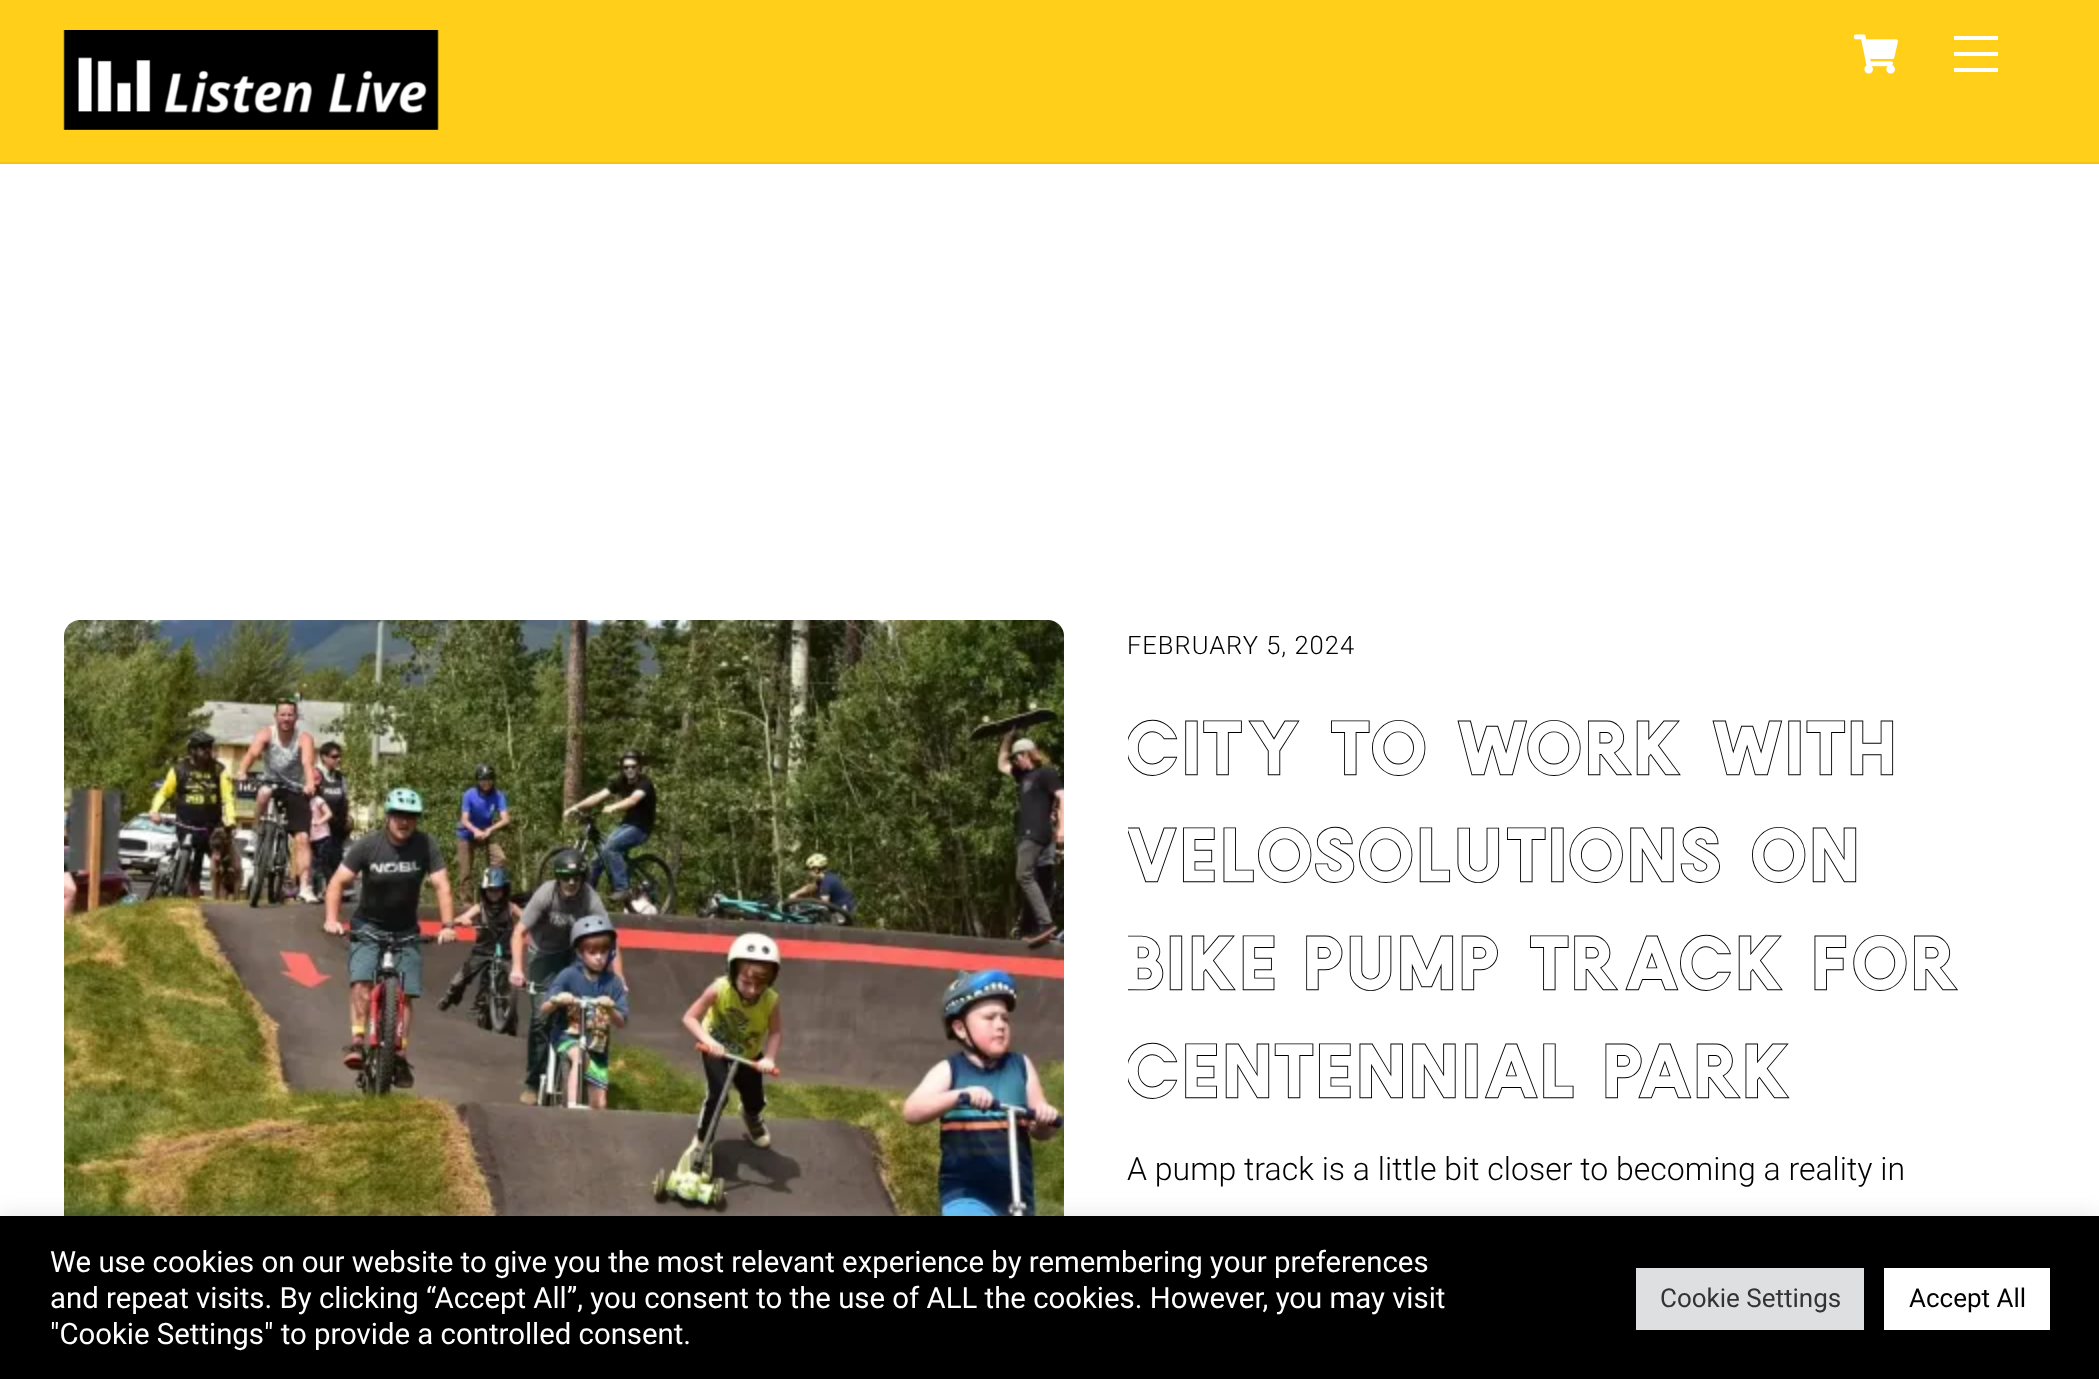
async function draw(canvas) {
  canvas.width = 2099;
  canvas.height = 1379;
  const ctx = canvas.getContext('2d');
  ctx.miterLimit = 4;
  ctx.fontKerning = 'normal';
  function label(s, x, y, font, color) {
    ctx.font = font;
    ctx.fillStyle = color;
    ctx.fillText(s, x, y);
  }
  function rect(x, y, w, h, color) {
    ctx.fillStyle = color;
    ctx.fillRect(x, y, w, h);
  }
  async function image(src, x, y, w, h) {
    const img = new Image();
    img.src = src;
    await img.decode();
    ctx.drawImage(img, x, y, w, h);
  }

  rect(0, 0, 2099, 1379, '#fff');
  rect(0, 0, 2099, 162, '#ffcf19');
  rect(0, 162, 2099, 2, '#f2c518');
  await image('assets/img1.png', 63, 30, 376, 100);
  await image('assets/img2.png', 1854, 34, 44, 40);
  rect(1954, 68, 44, 4, '#fff');
  rect(1954, 36, 44, 4, '#fff');
  rect(1954, 52, 44, 4, '#fff');
  await image('assets/img3.png', 64, 620, 1000, 596);
  ctx.letterSpacing = '1px';
  label('FEBRUARY 5, 2024', 1127, 654, '300 25.5px Roboto', '#000');
  ctx.save();
  ctx.beginPath();
  ctx.rect(1128, 620, 910, 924);
  ctx.clip();
  ctx.letterSpacing = '2px';
  label('City to work with', 1127, 779, '76.75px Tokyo', '#000');
  label('Velosolutions on', 1127, 886, '76.75px Tokyo', '#000');
  label('bike pump track for', 1127, 994, '76.75px Tokyo', '#000');
  label('Centennial Park', 1127, 1102, '76.75px Tokyo', '#000');
  ctx.restore();
  ctx.letterSpacing = '0px';
  label('A pump track is a little bit closer to becoming a reality in', 1127, 1180, '300 32px Roboto', '#000');
  ctx.fillStyle = '#acabab4d';
  ctx.filter = 'blur(10px)';
  ctx.beginPath();
  ctx.rect(0, 1214, 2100, 164);
  ctx.fill();
  ctx.filter = 'none';
  rect(0, 1216, 2099, 163, '#000');
  label('We use cookies on our website to give you the most relevant experience by remembering your preferences', 50, 1272, '29.35px Roboto', '#fff');
  label('and repeat visits. By clicking “Accept All”, you consent to the use of ALL the cookies. However, you may visit', 50, 1308, '29.35px Roboto', '#fff');
  label('"Cookie Settings" to provide a controlled consent.', 50, 1344, '29.35px Roboto', '#fff');
  rect(1636, 1268, 228, 62, '#dedfe0');
  label('Cookie Settings', 1660, 1307, '26px Roboto', '#333');
  rect(1884, 1268, 166, 62, '#fff');
  label('Accept All', 1909, 1307, '26px Roboto', '#000');
}

draw(document.querySelector('canvas'));
